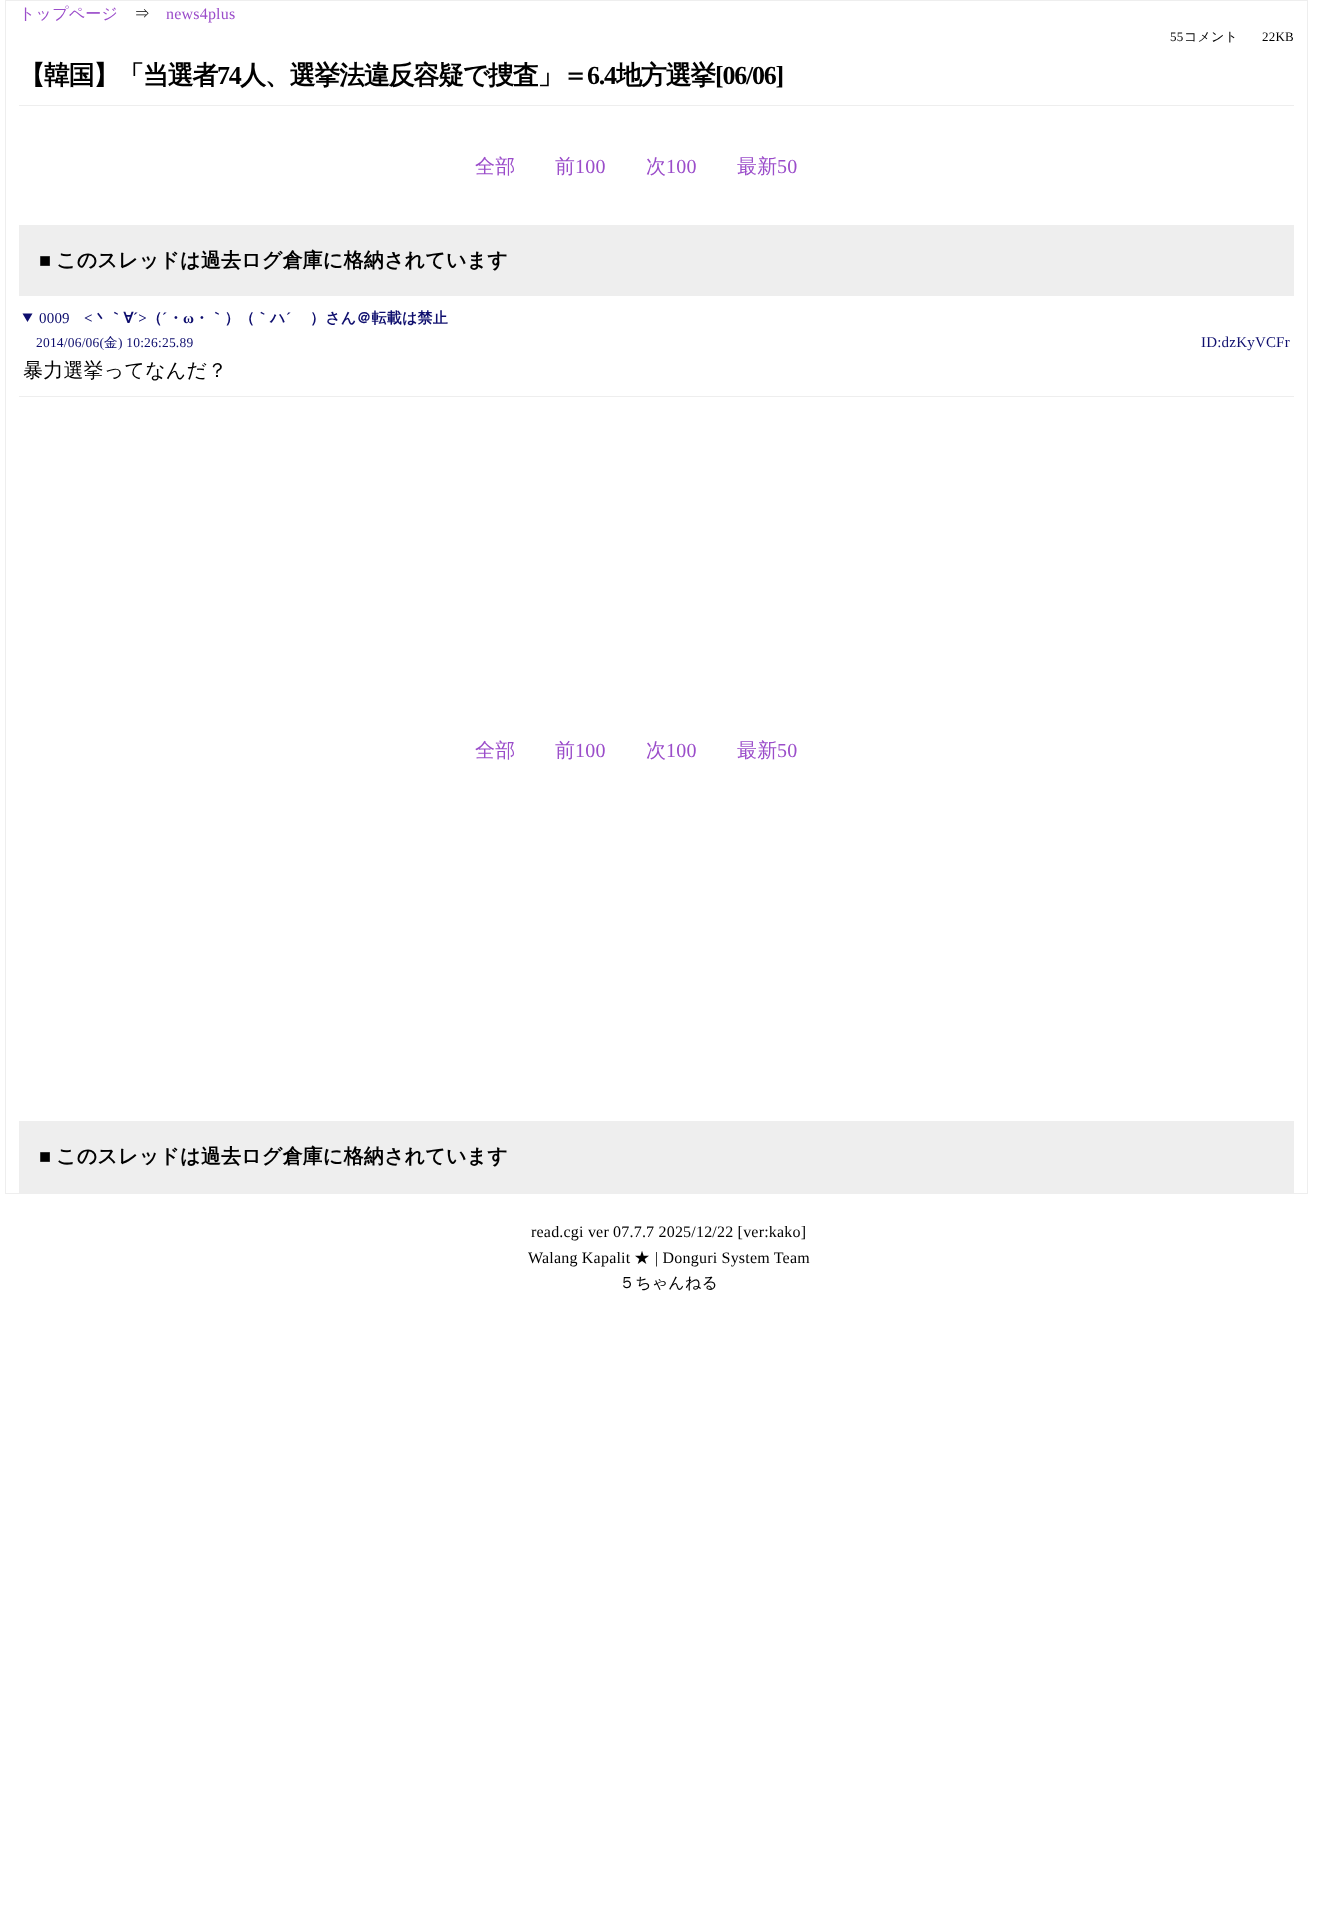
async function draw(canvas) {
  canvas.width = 1337;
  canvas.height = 1919;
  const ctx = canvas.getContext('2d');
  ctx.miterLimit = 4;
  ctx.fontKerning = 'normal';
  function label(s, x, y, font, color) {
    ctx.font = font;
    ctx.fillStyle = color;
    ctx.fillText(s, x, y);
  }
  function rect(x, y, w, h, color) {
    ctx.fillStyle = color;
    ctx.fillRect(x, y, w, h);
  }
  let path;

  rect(0, 0, 1337, 1919, '#fff');
  ctx.strokeStyle = '#eee';
  ctx.strokeRect(5.5, 0.5, 1302, 1193);
  ctx.letterSpacing = '0.2px';
  label('トップページ', 19, 19, '500 16px WenQuanYi Zen Hei', '#9b4dca');
  label('⇒', 134, 19, '500 16px WenQuanYi Zen Hei', '#000');
  label('news4plus', 166, 19, '16px Liberation Serif', '#9b4dca');
  label('55', 1170, 41, '13px Liberation Serif', '#000');
  label('コメント', 1184, 41, '500 13px WenQuanYi Zen Hei', '#000');
  label('22KB', 1262, 41, '13px Liberation Serif', '#000');
  rect(19, 105, 1275, 1, '#eee');
  ctx.letterSpacing = '-1.25px';
  label('【韓国】「当選者', 19, 84, 'bold 26px WenQuanYi Zen Hei', '#000');
  label('74', 217, 84, 'bold 26px Liberation Serif', '#000');
  label('人、選挙法違反容疑で捜査」＝', 240, 84, 'bold 26px WenQuanYi Zen Hei', '#000');
  label('6.4', 587, 84, 'bold 26px Liberation Serif', '#000');
  label('地方選挙', 616, 84, 'bold 26px WenQuanYi Zen Hei', '#000');
  label('[06/06]', 715, 84, 'bold 26px Liberation Serif', '#000');
  ctx.letterSpacing = '0.2px';
  label('全部', 475, 173, '500 20px WenQuanYi Zen Hei', '#9b4dca');
  label('前', 555, 173, '500 20px WenQuanYi Zen Hei', '#9b4dca');
  label('100', 575, 173, '20px Liberation Serif', '#9b4dca');
  label('次', 646, 173, '500 20px WenQuanYi Zen Hei', '#9b4dca');
  label('100', 666, 173, '20px Liberation Serif', '#9b4dca');
  label('最新', 737, 173, '500 20px WenQuanYi Zen Hei', '#9b4dca');
  label('50', 777, 173, '20px Liberation Serif', '#9b4dca');
  rect(19, 225, 1275, 71, '#eee');
  label('■', 39, 267, 'bold 20px Liberation Serif', '#000');
  label('このスレッドは過去ログ倉庫に格納されています', 56, 267, 'bold 20px WenQuanYi Zen Hei', '#000');
  rect(19, 396, 1275, 1, '#eee');
  ctx.fillStyle = '#0e0e6e';
  path = new Path2D('M22.5 313.5H32.5L27.5 322Z');
  ctx.fill(path);
  label('0009', 39, 323, '15px Liberation Serif', '#0e0e6e');
  label('<', 84, 323, 'bold 15px Liberation Serif', '#0e0e6e');
  label('丶｀∀', 93, 323, 'bold 15px WenQuanYi Zen Hei', '#0e0e6e');
  label('´>', 133, 323, 'bold 15px Liberation Serif', '#0e0e6e');
  label('（', 147, 323, 'bold 15px WenQuanYi Zen Hei', '#0e0e6e');
  label('´', 162, 323, 'bold 15px Liberation Serif', '#0e0e6e');
  label('・', 168, 323, 'bold 15px WenQuanYi Zen Hei', '#0e0e6e');
  label('ω', 183, 323, 'bold 15px Liberation Serif', '#0e0e6e');
  label('・｀）（｀ハ', 194, 323, 'bold 15px WenQuanYi Zen Hei', '#0e0e6e');
  label('´', 286, 323, 'bold 15px Liberation Serif', '#0e0e6e');
  label('）さん＠転載は禁止', 310, 323, 'bold 15px WenQuanYi Zen Hei', '#0e0e6e');
  label('2014/06/06(', 36, 347, '13.5px Liberation Serif', '#0e0e6e');
  label('金', 104, 347, '500 13.5px WenQuanYi Zen Hei', '#0e0e6e');
  label(') 10:26:25.89', 118, 347, '13.5px Liberation Serif', '#0e0e6e');
  label('ID:dzKyVCFr', 1201, 347, '15px Liberation Serif', '#0e0e6e');
  label('暴力選挙ってなんだ？', 23, 377, '500 20px WenQuanYi Zen Hei', '#000');
  label('全部', 475, 757, '500 20px WenQuanYi Zen Hei', '#9b4dca');
  label('前', 555, 757, '500 20px WenQuanYi Zen Hei', '#9b4dca');
  label('100', 575, 757, '20px Liberation Serif', '#9b4dca');
  label('次', 646, 757, '500 20px WenQuanYi Zen Hei', '#9b4dca');
  label('100', 666, 757, '20px Liberation Serif', '#9b4dca');
  label('最新', 737, 757, '500 20px WenQuanYi Zen Hei', '#9b4dca');
  label('50', 777, 757, '20px Liberation Serif', '#9b4dca');
  rect(19, 1121, 1275, 72, '#eee');
  label('■', 39, 1163, 'bold 20px Liberation Serif', '#000');
  label('このスレッドは過去ログ倉庫に格納されています', 56, 1163, 'bold 20px WenQuanYi Zen Hei', '#000');
  label('read.cgi ver 07.7.7 2025/12/22 [ver:kako]', 531, 1237, '16px Liberation Serif', '#000');
  label('Walang Kapalit', 528, 1263, '16px Liberation Serif', '#000');
  label('★', 634, 1263, '500 16px WenQuanYi Zen Hei', '#000');
  label('| Donguri System Team', 655, 1263, '16px Liberation Serif', '#000');
  label('５ちゃんねる', 619, 1288, '500 16px WenQuanYi Zen Hei', '#000');
}

draw(document.querySelector('canvas'));
